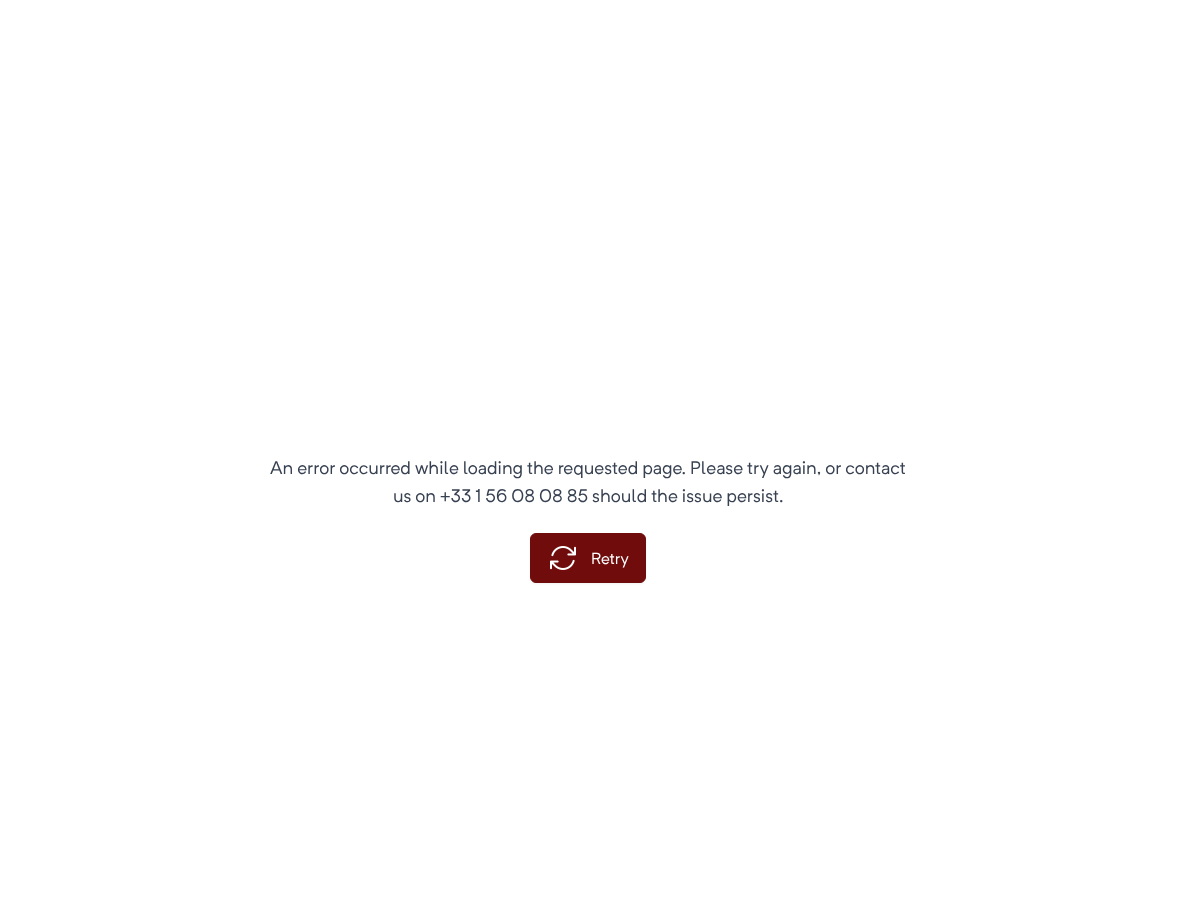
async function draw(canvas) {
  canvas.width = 1191;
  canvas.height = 911;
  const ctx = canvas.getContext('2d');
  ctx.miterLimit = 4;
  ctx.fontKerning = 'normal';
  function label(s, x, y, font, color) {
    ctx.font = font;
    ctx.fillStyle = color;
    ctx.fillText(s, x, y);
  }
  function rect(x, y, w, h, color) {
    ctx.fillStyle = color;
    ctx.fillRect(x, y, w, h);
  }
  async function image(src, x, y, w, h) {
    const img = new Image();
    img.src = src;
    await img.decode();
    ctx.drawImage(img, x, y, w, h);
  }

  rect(0, 0, 1191, 911, '#fff');
  label('An error occurred while loading the requested page. Please try again, or contact', 270, 474, '18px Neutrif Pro', '#374151');
  label('us on +33 1 56 08 08 85 should the issue persist.', 393, 502, '18px Neutrif Pro', '#374151');
  ctx.fillStyle = '#0000000d';
  ctx.filter = 'blur(1px)';
  ctx.beginPath();
  ctx.roundRect(530, 534, 116, 50, 6);
  ctx.fill();
  ctx.filter = 'none';
  ctx.fillStyle = '#700c0c';
  ctx.beginPath();
  ctx.roundRect(530.5, 533.5, 115, 49, 5.5);
  ctx.fill();
  ctx.strokeStyle = '#700c0c';
  ctx.stroke();
  await image('assets/img1.png', 550, 546, 26, 24);
  label('Retry', 591, 564, '16px Neutrif Pro', '#fff');
}

draw(document.querySelector('canvas'));
